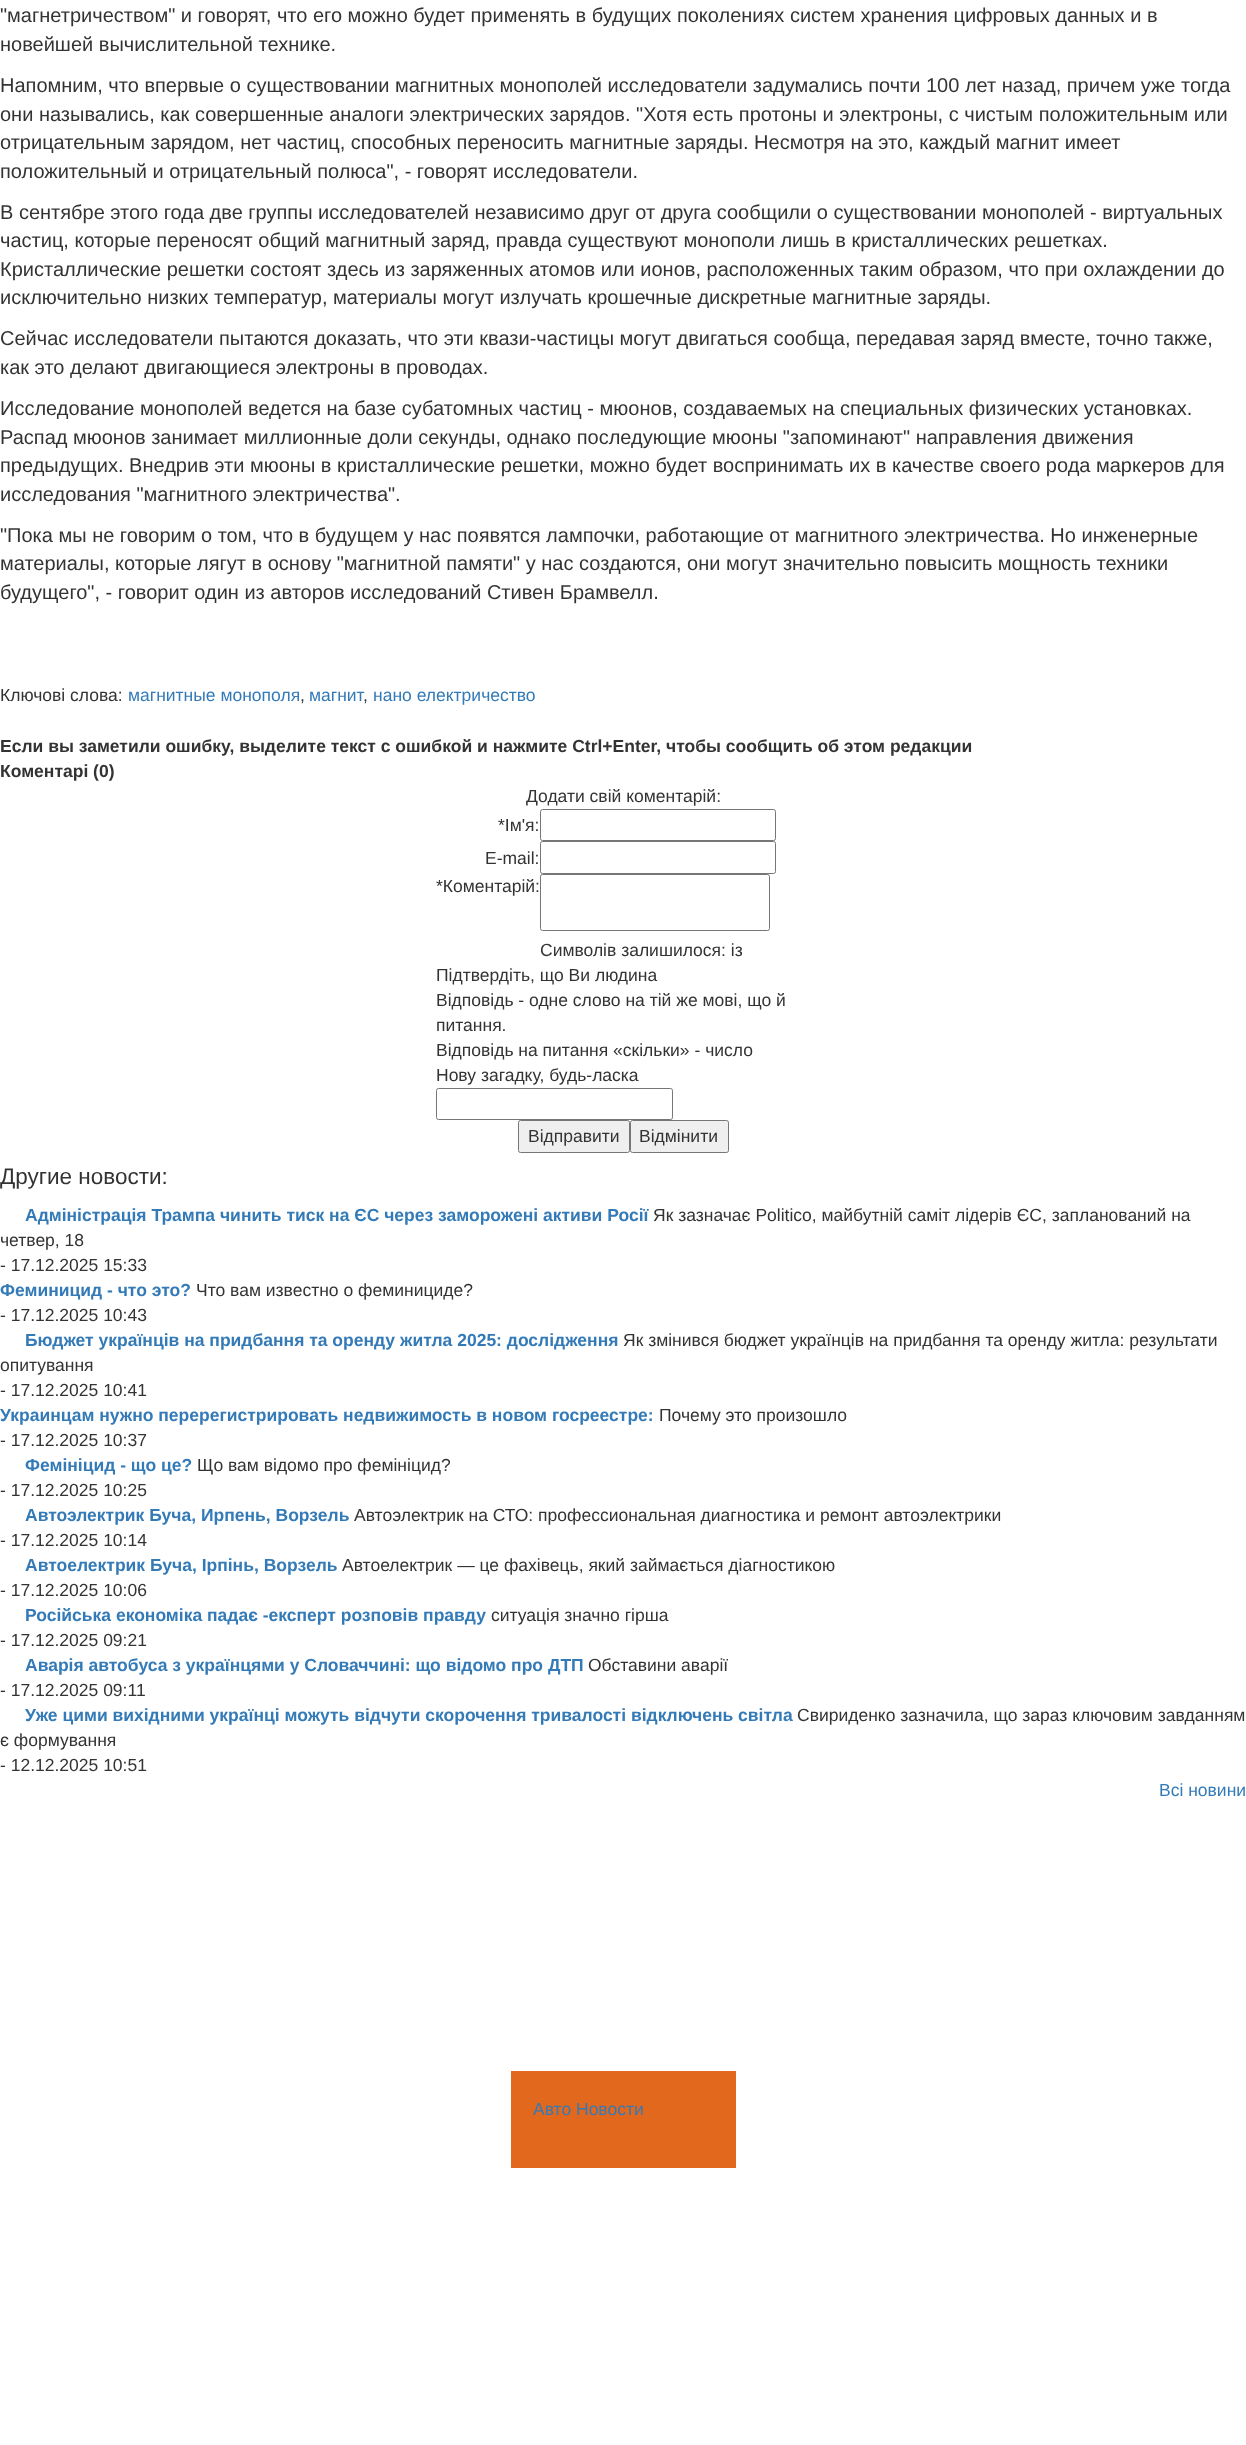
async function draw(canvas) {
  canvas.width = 1246;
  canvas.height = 2445;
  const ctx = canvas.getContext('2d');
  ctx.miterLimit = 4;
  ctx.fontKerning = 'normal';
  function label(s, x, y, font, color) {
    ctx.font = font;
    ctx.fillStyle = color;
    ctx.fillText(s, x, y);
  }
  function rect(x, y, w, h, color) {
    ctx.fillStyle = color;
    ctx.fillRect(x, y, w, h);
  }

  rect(0, 0, 1246, 2445, '#fff');
  label('"магнетричеством" и говорят, что его можно будет применять в будущих поколениях систем хранения цифровых данных и в', 0, 22, '20px Liberation Sans', '#333');
  label('новейшей вычислительной технике.', 0, 51, '20px Liberation Sans', '#333');
  label('Напомним, что впервые о существовании магнитных монополей исследователи задумались почти 100 лет назад, причем уже тогда', 0, 92, '20px Liberation Sans', '#333');
  label('они назывались, как совершенные аналоги электрических зарядов. "Хотя есть протоны и электроны, с чистым положительным или', 0, 121, '20px Liberation Sans', '#333');
  label('отрицательным зарядом, нет частиц, способных переносить магнитные заряды. Несмотря на это, каждый магнит имеет', 0, 149, '20px Liberation Sans', '#333');
  label('положительный и отрицательный полюса", - говорят исследователи.', 0, 178, '20px Liberation Sans', '#333');
  label('В сентябре этого года две группы исследователей независимо друг от друга сообщили о существовании монополей - виртуальных', 0, 219, '20px Liberation Sans', '#333');
  label('частиц, которые переносят общий магнитный заряд, правда существуют монополи лишь в кристаллических решетках.', 0, 247, '20px Liberation Sans', '#333');
  label('Кристаллические решетки состоят здесь из заряженных атомов или ионов, расположенных таким образом, что при охлаждении до', 0, 276, '20px Liberation Sans', '#333');
  label('исключительно низких температур, материалы могут излучать крошечные дискретные магнитные заряды.', 0, 304, '20px Liberation Sans', '#333');
  label('Сейчас исследователи пытаются доказать, что эти квази-частицы могут двигаться сообща, передавая заряд вместе, точно также,', 0, 345, '20px Liberation Sans', '#333');
  label('как это делают двигающиеся электроны в проводах.', 0, 374, '20px Liberation Sans', '#333');
  label('Исследование монополей ведется на базе субатомных частиц - мюонов, создаваемых на специальных физических установках.', 0, 415, '20px Liberation Sans', '#333');
  label('Распад мюонов занимает миллионные доли секунды, однако последующие мюоны "запоминают" направления движения', 0, 444, '20px Liberation Sans', '#333');
  label('предыдущих. Внедрив эти мюоны в кристаллические решетки, можно будет воспринимать их в качестве своего рода маркеров для', 0, 472, '20px Liberation Sans', '#333');
  label('исследования "магнитного электричества".', 0, 501, '20px Liberation Sans', '#333');
  label('"Пока мы не говорим о том, что в будущем у нас появятся лампочки, работающие от магнитного электричества. Но инженерные', 0, 542, '20px Liberation Sans', '#333');
  label('материалы, которые лягут в основу "магнитной памяти" у нас создаются, они могут значительно повысить мощность техники', 0, 570, '20px Liberation Sans', '#333');
  label('будущего", - говорит один из авторов исследований Стивен Брамвелл.', 0, 599, '20px Liberation Sans', '#333');
  label('Ключові слова:', 0, 701, '17.5px Liberation Sans', '#333');
  label('магнитные монополя', 128, 701, '17.5px Liberation Sans', '#337ab7');
  label(',', 300, 701, '17.5px Liberation Sans', '#333');
  label('магнит', 309, 701, '17.5px Liberation Sans', '#337ab7');
  label(',', 363, 701, '17.5px Liberation Sans', '#333');
  label('нано електричество', 373, 701, '17.5px Liberation Sans', '#337ab7');
  label('Если вы заметили ошибку, выделите текст с ошибкой и нажмите Ctrl+Enter, чтобы сообщить об этом редакции', 0, 752, 'bold 17.5px Liberation Sans', '#333');
  label('Коментарі (0)', 0, 777, 'bold 17.5px Liberation Sans', '#333');
  label('Додати свій коментарій:', 526, 802, '17.5px Liberation Sans', '#333');
  label('*Ім\'я:', 498, 831, '17.5px Liberation Sans', '#333');
  ctx.beginPath();
  ctx.roundRect(540.5, 809.5, 235, 31, 2);
  ctx.strokeStyle = '#767676';
  ctx.stroke();
  label('E-mail:', 485, 864, '17.5px Liberation Sans', '#333');
  ctx.beginPath();
  ctx.roundRect(540.5, 841.5, 235, 32, 2);
  ctx.stroke();
  label('*Коментарій:', 436, 892, '17.5px Liberation Sans', '#333');
  ctx.beginPath();
  ctx.roundRect(540.5, 874.5, 229, 56, 2);
  ctx.stroke();
  label('Символів залишилося: із', 540, 956, '17.5px Liberation Sans', '#333');
  label('Підтвердіть, що Ви людина', 436, 981, '17.5px Liberation Sans', '#333');
  label('Відповідь - одне слово на тій же мові, що й', 436, 1006, '17.5px Liberation Sans', '#333');
  label('питання.', 436, 1031, '17.5px Liberation Sans', '#333');
  label('Відповідь на питання «скільки» - число', 436, 1056, '17.5px Liberation Sans', '#333');
  label('Нову загадку, будь-ласка', 436, 1081, '17.5px Liberation Sans', '#333');
  ctx.beginPath();
  ctx.roundRect(436.5, 1088.5, 236, 31, 2);
  ctx.stroke();
  ctx.fillStyle = '#efefef';
  ctx.beginPath();
  ctx.roundRect(518.5, 1120.5, 111, 32, 2);
  ctx.fill();
  ctx.stroke();
  label('Відправити', 528, 1142, '17.5px Liberation Sans', '#333');
  ctx.fillStyle = '#efefef';
  ctx.beginPath();
  ctx.roundRect(630.5, 1120.5, 98, 32, 2);
  ctx.fill();
  ctx.stroke();
  label('Відмінити', 639, 1142, '17.5px Liberation Sans', '#333');
  label('Другие новости:', 0, 1184, '22.5px Liberation Sans', '#333');
  label('Адміністрація Трампа чинить тиск на ЄС через заморожені активи Росії', 25, 1221, 'bold 17.5px Liberation Sans', '#337ab7');
  label('Як зазначає Politico, майбутній саміт лідерів ЄС, запланований на', 653, 1221, '17.5px Liberation Sans', '#333');
  label('четвер, 18', 0, 1246, '17.5px Liberation Sans', '#333');
  label('- 17.12.2025 15:33', 0, 1271, '17.5px Liberation Sans', '#333');
  label('Феминицид - что это?', 0, 1296, 'bold 17.5px Liberation Sans', '#337ab7');
  label('Что вам известно о феминициде?', 196, 1296, '17.5px Liberation Sans', '#333');
  label('- 17.12.2025 10:43', 0, 1321, '17.5px Liberation Sans', '#333');
  label('Бюджет українців на придбання та оренду житла 2025: дослідження', 25, 1346, 'bold 17.5px Liberation Sans', '#337ab7');
  label('Як змінився бюджет українців на придбання та оренду житла: результати', 623, 1346, '17.5px Liberation Sans', '#333');
  label('опитування', 0, 1371, '17.5px Liberation Sans', '#333');
  label('- 17.12.2025 10:41', 0, 1396, '17.5px Liberation Sans', '#333');
  label('Украинцам нужно перерегистрировать недвижимость в новом госреестре:', 0, 1421, 'bold 17.5px Liberation Sans', '#337ab7');
  label('Почему это произошло', 659, 1421, '17.5px Liberation Sans', '#333');
  label('- 17.12.2025 10:37', 0, 1446, '17.5px Liberation Sans', '#333');
  label('Фемініцид - що це?', 25, 1471, 'bold 17.5px Liberation Sans', '#337ab7');
  label('Що вам відомо про фемініцид?', 197, 1471, '17.5px Liberation Sans', '#333');
  label('- 17.12.2025 10:25', 0, 1496, '17.5px Liberation Sans', '#333');
  label('Автоэлектрик Буча, Ирпень, Ворзель', 25, 1521, 'bold 17.5px Liberation Sans', '#337ab7');
  label('Автоэлектрик на СТО: профессиональная диагностика и ремонт автоэлектрики', 354, 1521, '17.5px Liberation Sans', '#333');
  label('- 17.12.2025 10:14', 0, 1546, '17.5px Liberation Sans', '#333');
  label('Автоелектрик Буча, Ірпінь, Ворзель', 25, 1571, 'bold 17.5px Liberation Sans', '#337ab7');
  label('Автоелектрик — це фахівець, який займається діагностикою', 342, 1571, '17.5px Liberation Sans', '#333');
  label('- 17.12.2025 10:06', 0, 1596, '17.5px Liberation Sans', '#333');
  label('Російська економіка падає -експерт розповів правду', 25, 1621, 'bold 17.5px Liberation Sans', '#337ab7');
  label('ситуація значно гірша', 491, 1621, '17.5px Liberation Sans', '#333');
  label('- 17.12.2025 09:21', 0, 1646, '17.5px Liberation Sans', '#333');
  label('Аварія автобуса з українцями у Словаччині: що відомо про ДТП', 25, 1671, 'bold 17.5px Liberation Sans', '#337ab7');
  label('Обставини аварії', 588, 1671, '17.5px Liberation Sans', '#333');
  label('- 17.12.2025 09:11', 0, 1696, '17.5px Liberation Sans', '#333');
  label('Уже цими вихідними українці можуть відчути скорочення тривалості відключень світла', 25, 1721, 'bold 17.5px Liberation Sans', '#337ab7');
  label('Свириденко зазначила, що зараз ключовим завданням', 797, 1721, '17.5px Liberation Sans', '#333');
  label('є формування', 0, 1746, '17.5px Liberation Sans', '#333');
  label('- 12.12.2025 10:51', 0, 1771, '17.5px Liberation Sans', '#333');
  label('Всі новини', 1159, 1796, '17.5px Liberation Sans', '#337ab7');
  rect(511, 2071, 225, 97, '#e2681e');
  label('Авто Новости', 533, 2115, '17.5px Liberation Sans', '#337ab7');
}

draw(document.querySelector('canvas'));
